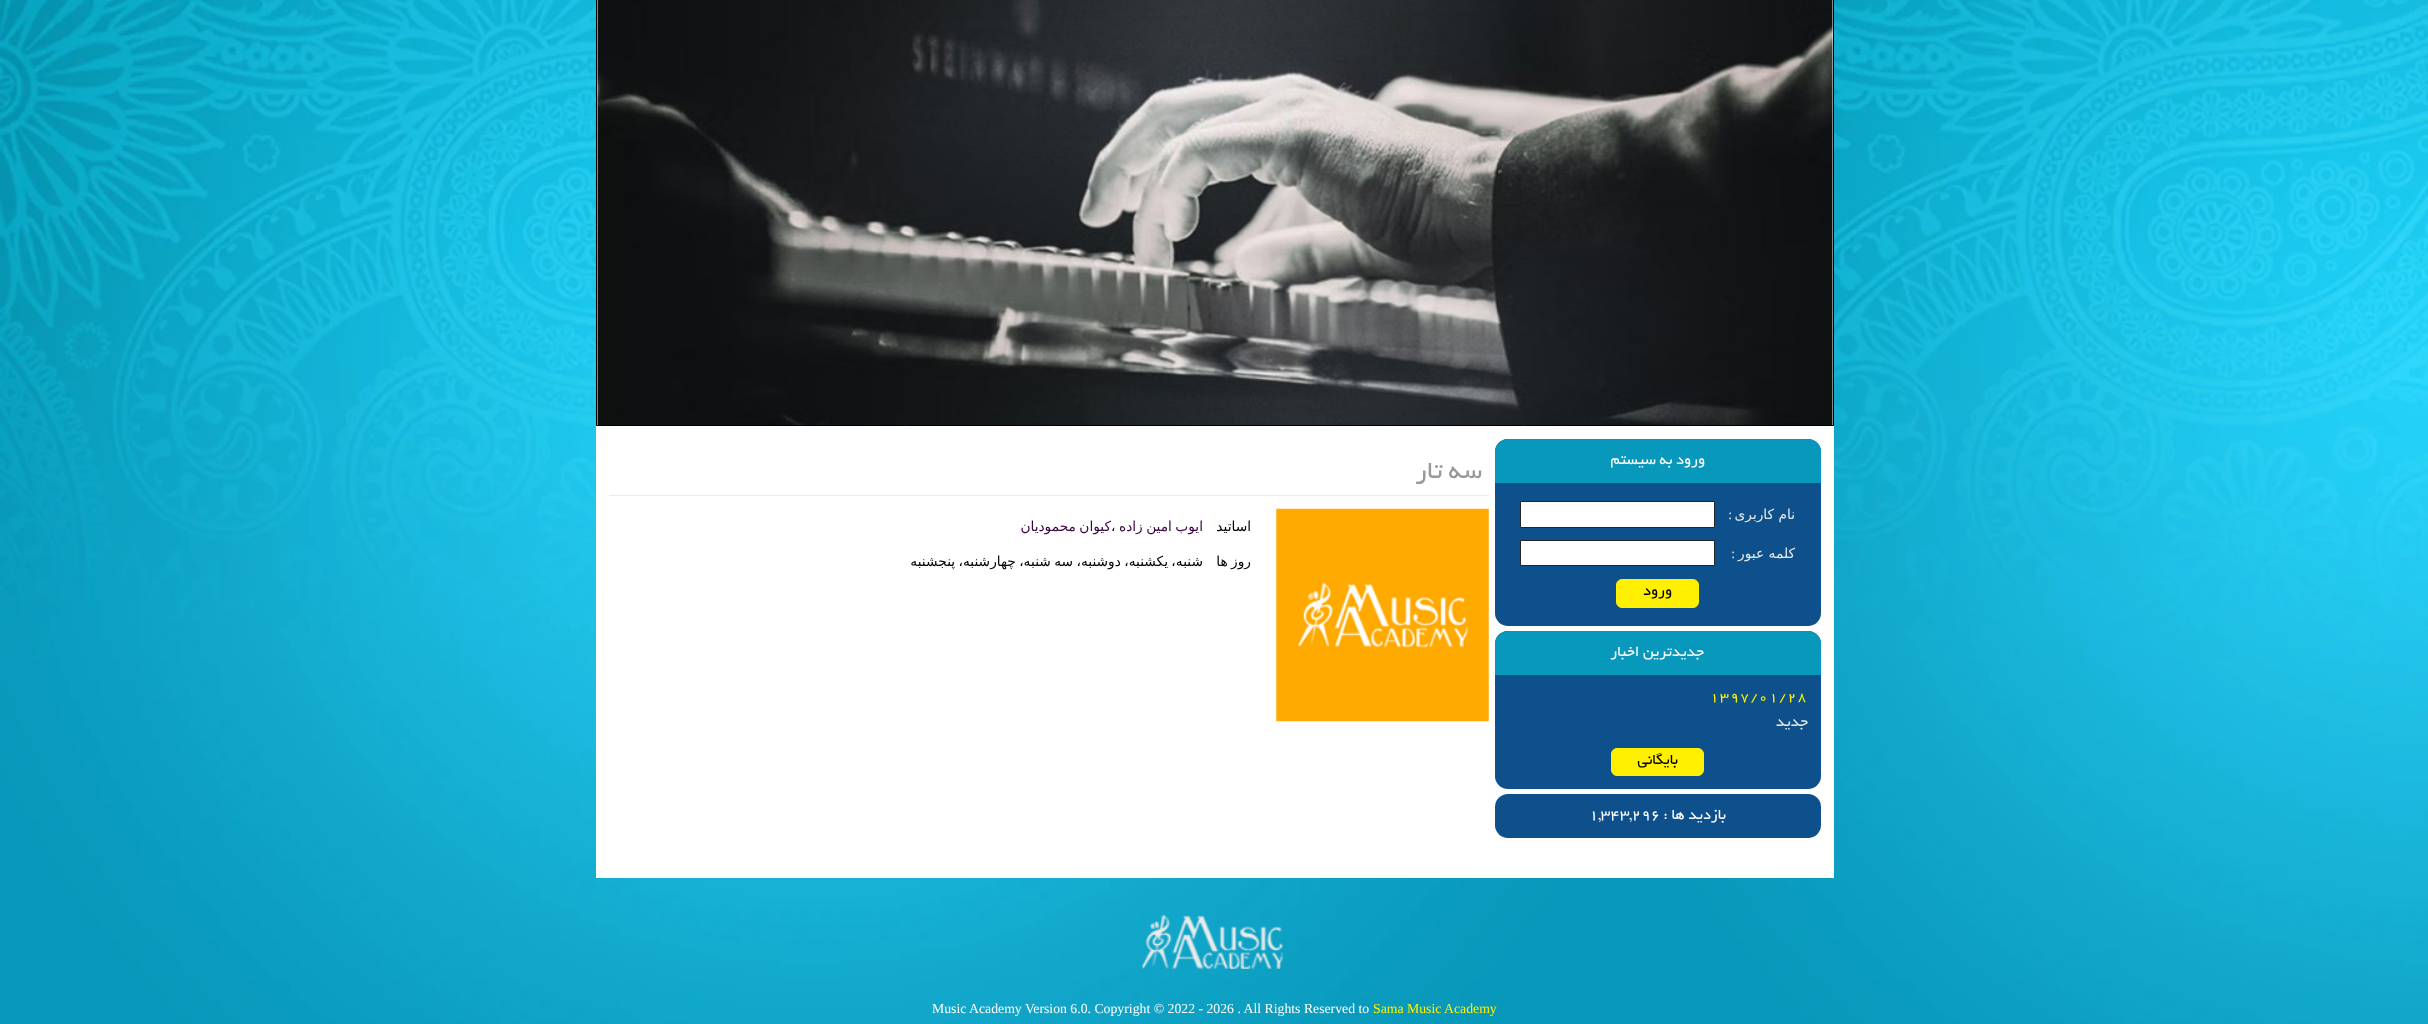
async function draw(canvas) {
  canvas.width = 2428;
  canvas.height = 1024;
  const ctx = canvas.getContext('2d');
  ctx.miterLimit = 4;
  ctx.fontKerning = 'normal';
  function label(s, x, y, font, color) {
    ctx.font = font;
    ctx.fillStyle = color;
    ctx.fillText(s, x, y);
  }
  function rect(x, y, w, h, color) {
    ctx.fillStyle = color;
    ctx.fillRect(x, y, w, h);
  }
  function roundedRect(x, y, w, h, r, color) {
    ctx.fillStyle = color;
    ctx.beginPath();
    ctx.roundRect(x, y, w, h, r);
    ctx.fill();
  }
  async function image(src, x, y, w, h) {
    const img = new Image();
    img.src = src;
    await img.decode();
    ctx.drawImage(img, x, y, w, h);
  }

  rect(0, 0, 2428, 1024, '#fff');
  await image('assets/img1.png', 0, 0, 2428, 1024);
  ctx.beginPath();
  ctx.rect(596.5, -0.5, 1237, 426);
  ctx.fill();
  ctx.strokeStyle = '#000';
  ctx.stroke();
  await image('assets/img2.png', 597, 0, 1236, 425);
  rect(596, 426, 1238, 452, '#fff');
  roundedRect(1495, 439, 326, 187, 13, '#0d508c');
  ctx.fillStyle = '#0898bb';
  ctx.beginPath();
  ctx.roundRect(1495, 439, 326, 44, [13, 13, 0, 0]);
  ctx.fill();
  ctx.direction = 'rtl';
  label('ورود به سیستم', 1705, 464, '16.25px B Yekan', '#fff');
  label('نام کاربری', 1795, 519, '13.75px DejaVu Sans', '#eaeaea');
  label(':', 1732, 519, '13.75px Liberation Serif', '#eaeaea');
  ctx.fillStyle = '#fff';
  ctx.beginPath();
  ctx.rect(1520.5, 501.5, 194, 26);
  ctx.fill();
  ctx.strokeStyle = '#252525';
  ctx.stroke();
  label('کلمه عبور', 1795, 558, '13.75px DejaVu Sans', '#eaeaea');
  label(':', 1735, 558, '13.75px Liberation Serif', '#eaeaea');
  ctx.fillStyle = '#fff';
  ctx.beginPath();
  ctx.rect(1520.5, 540.5, 194, 25);
  ctx.fill();
  ctx.stroke();
  ctx.fillStyle = '#fff000';
  ctx.beginPath();
  ctx.roundRect(1616.5, 579.5, 82, 28, 5.5);
  ctx.fill();
  ctx.strokeStyle = '#fff000';
  ctx.stroke();
  label('ورود', 1672, 595, '16.25px B Yekan', '#000');
  roundedRect(1495, 631, 326, 158, 13, '#0d508c');
  ctx.fillStyle = '#0898bb';
  ctx.beginPath();
  ctx.roundRect(1495, 631, 326, 44, [13, 13, 0, 0]);
  ctx.fill();
  label('جدیدترین اخبار', 1704, 656, '16.25px B Yekan', '#fff');
  ctx.letterSpacing = '1.25px';
  ctx.direction = 'ltr';
  label('1397/01/28', 1710, 701, '15px B Yekan', '#fff000');
  ctx.letterSpacing = '0px';
  ctx.direction = 'rtl';
  label('جدید', 1808, 726, '16.25px B Yekan', '#eaeaea');
  ctx.fillStyle = '#fff000';
  ctx.beginPath();
  ctx.roundRect(1611.5, 748.5, 92, 27, 5.5);
  ctx.fill();
  ctx.stroke();
  label('بایگانی', 1678, 764, '16.25px B Yekan', '#000');
  roundedRect(1495, 794, 326, 44, 13, '#0d508c');
  label('بازدید ها :', 1726, 819, '16.25px B Yekan', '#fff');
  ctx.direction = 'ltr';
  label('1,343,296', 1589, 819, '16.25px B Yekan', '#fff');
  rect(609, 495, 880, 1, '#ebebeb');
  ctx.direction = 'rtl';
  label('سه تار', 1482, 478, '27.5px B Yekan', '#999');
  await image('assets/img3.png', 1276, 508, 213, 214);
  label('اساتید', 1251, 531, '13.75px DejaVu Sans', '#000');
  ctx.wordSpacing = '-1px';
  label('ایوب امین زاده', 1203, 531, '13.75px DejaVu Sans', '#38033f');
  ctx.wordSpacing = '0px';
  ctx.direction = 'ltr';
  label('،', 1111, 531, '13.75px DejaVu Sans', '#000');
  ctx.wordSpacing = '-1px';
  ctx.direction = 'rtl';
  label('کیوان محمودیان', 1111, 531, '13.75px DejaVu Sans', '#38033f');
  label('روز ها', 1251, 566, '13.75px DejaVu Sans', '#000');
  label('شنبه، یکشنبه، دوشنبه، سه شنبه، چهارشنبه، پنجشنبه', 1203, 566, '13.75px DejaVu Sans', '#000');
  await image('assets/img4.png', 1142, 914, 141, 55);
  ctx.wordSpacing = '0px';
  ctx.direction = 'ltr';
  label('Sama Music Academy', 1373, 1013, '13.75px Liberation Serif', '#fff000');
  label('Music Academy Version 6.0. Copyright © 2022 - 2026 . All Rights Reserved to', 932, 1013, '13.75px Liberation Serif', '#fff');
}

draw(document.querySelector('canvas'));
